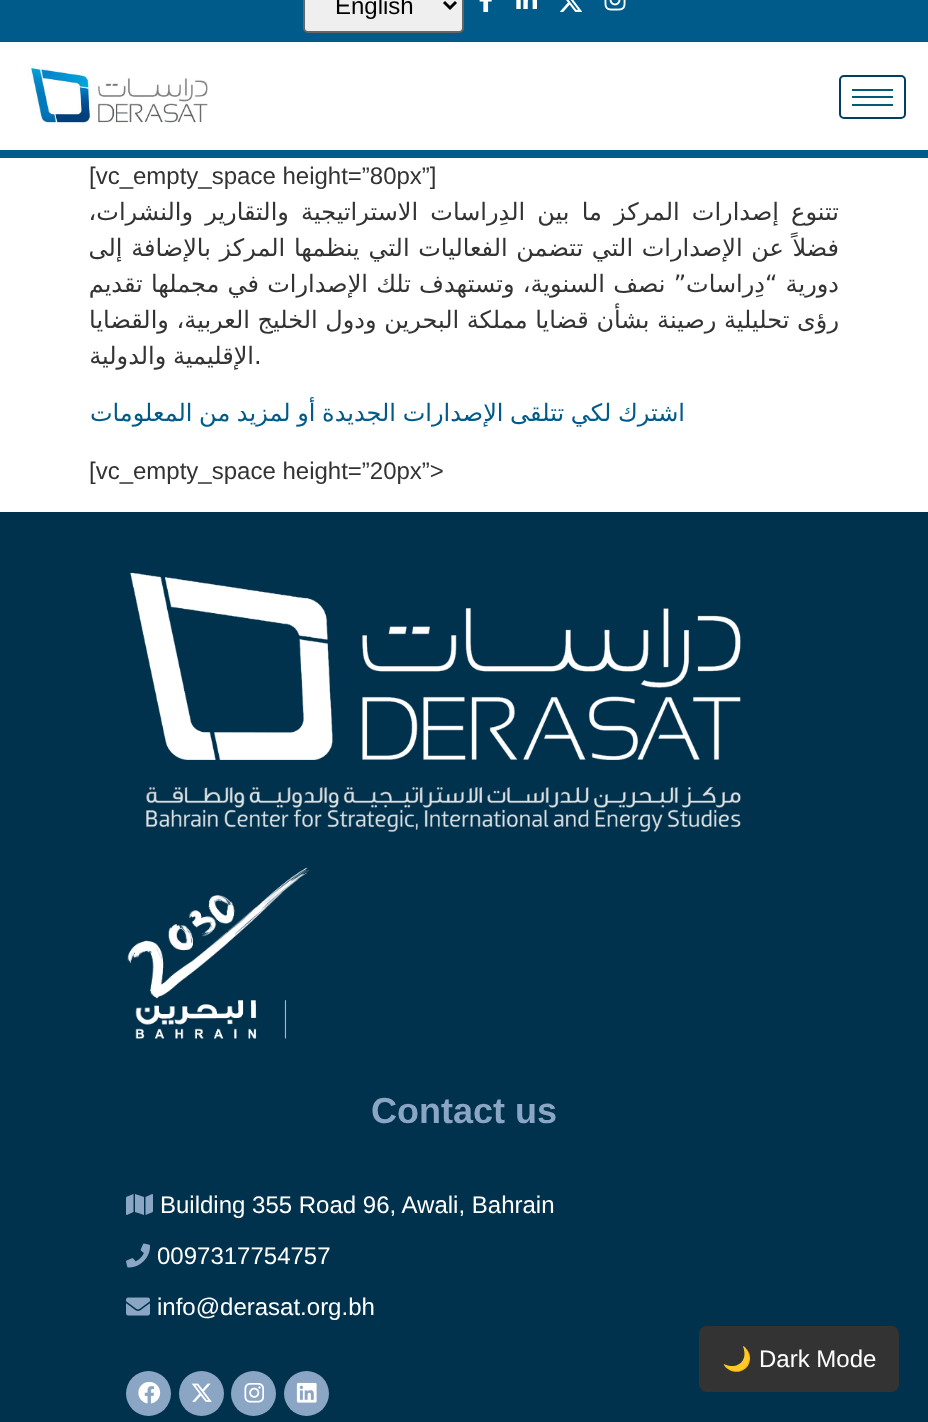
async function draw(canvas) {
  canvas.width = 928;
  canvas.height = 1422;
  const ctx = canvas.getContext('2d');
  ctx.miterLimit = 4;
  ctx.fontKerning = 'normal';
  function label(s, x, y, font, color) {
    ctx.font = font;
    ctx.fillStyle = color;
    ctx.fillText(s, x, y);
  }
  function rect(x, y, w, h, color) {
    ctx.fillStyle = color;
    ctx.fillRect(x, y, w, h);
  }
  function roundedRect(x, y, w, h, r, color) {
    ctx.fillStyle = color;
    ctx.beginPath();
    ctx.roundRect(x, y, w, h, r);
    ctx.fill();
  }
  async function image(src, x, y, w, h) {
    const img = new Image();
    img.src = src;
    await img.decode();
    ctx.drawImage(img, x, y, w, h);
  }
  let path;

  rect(0, 0, 928, 1422, '#fff');
  rect(0, 0, 928, 42, '#005b8b');
  await image('assets/img1.png', 604, 0, 22, 11);
  await image('assets/img2.png', 560, 0, 22, 12);
  await image('assets/img3.png', 516, 0, 21, 9);
  await image('assets/img4.png', 479, 0, 13, 12);
  ctx.fillStyle = '#efefef';
  ctx.beginPath();
  ctx.roundRect(304, -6, 159, 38, 4);
  ctx.fill();
  ctx.strokeStyle = '#666';
  ctx.lineWidth = 2;
  ctx.stroke();
  path = new Path2D('M444 2L450 8L456 2');
  ctx.strokeStyle = '#000';
  ctx.lineWidth = 3;
  ctx.stroke(path);
  label('English', 335, 14, '24px Liberation Sans', '#000');
  rect(0, 150, 928, 8, '#005b8b');
  ctx.beginPath();
  ctx.roundRect(840, 76, 65, 42, 4);
  ctx.strokeStyle = '#003f60';
  ctx.lineWidth = 2;
  ctx.stroke();
  rect(852, 89, 41, 2, '#005a78');
  rect(852, 96, 41, 2, '#005a78');
  rect(852, 104, 41, 2, '#005a78');
  await image('assets/img5.png', 28, 65, 180, 60);
  label('[vc_empty_space height=”80px”]', 89, 184, '24px Liberation Sans', '#333');
  ctx.wordSpacing = '4.5px';
  ctx.direction = 'rtl';
  label('تتنوع إصدارات المركز ما بين الدِراسات الاستراتيجية والتقارير والنشرات،', 839, 220, '24px DejaVu Sans', '#333');
  ctx.wordSpacing = '1px';
  label('فضلاً عن الإصدارات التي تتضمن الفعاليات التي ينظمها المركز بالإضافة إلى', 839, 256, '24px DejaVu Sans', '#333');
  ctx.wordSpacing = '0.5px';
  label('دورية “دِراسات” نصف السنوية، وتستهدف تلك الإصدارات في مجملها تقديم', 839, 292, '24px DejaVu Sans', '#333');
  ctx.wordSpacing = '0px';
  label('رؤى تحليلية رصينة بشأن قضايا مملكة البحرين ودول الخليج العربية، والقضايا', 839, 328, '24px DejaVu Sans', '#333');
  ctx.direction = 'ltr';
  label('.', 254, 364, '24px DejaVu Sans', '#333');
  ctx.wordSpacing = '-1px';
  ctx.direction = 'rtl';
  label('الإقليمية والدولية', 254, 364, '24px DejaVu Sans', '#333');
  label('اشترك لكي تتلقى الإصدارات الجديدة أو لمزيد من المعلومات', 685, 421, '24px DejaVu Sans', '#005b8b');
  ctx.wordSpacing = '0px';
  ctx.direction = 'ltr';
  label('[vc_empty_space height=”20px”>', 89, 479, '24px Liberation Sans', '#333');
  rect(0, 512, 928, 910, '#00324d');
  await image('assets/img6.png', 130, 572, 611, 260);
  await image('assets/img7.png', 127, 867, 182, 172);
  label('Contact us', 371, 1123, 'bold 36px Liberation Sans', '#8aa6c4');
  label('Building 355 Road 96, Awali, Bahrain', 160, 1213, '24px Liberation Sans', '#fff');
  await image('assets/img8.png', 126, 1194, 27, 21);
  label('0097317754757', 157, 1264, '24px Liberation Sans', '#fff');
  await image('assets/img9.png', 126, 1243, 24, 25);
  label('info@derasat.org.bh', 157, 1315, '24px Liberation Sans', '#fff');
  await image('assets/img10.png', 126, 1297, 24, 19);
  ctx.fillStyle = '#8aa6c4';
  ctx.beginPath();
  ctx.arc(306.5, 1393.5, 22.5, 0, 2 * Math.PI);
  ctx.fill();
  await image('assets/img11.png', 296, 1382, 21, 21);
  ctx.beginPath();
  ctx.arc(253.5, 1393.5, 22.5, 0, 2 * Math.PI);
  ctx.fill();
  await image('assets/img12.png', 244, 1383, 20, 20);
  ctx.beginPath();
  ctx.arc(201.5, 1393.5, 22.5, 0, 2 * Math.PI);
  ctx.fill();
  await image('assets/img13.png', 191, 1383, 21, 19);
  ctx.beginPath();
  ctx.arc(148.5, 1393.5, 22.5, 0, 2 * Math.PI);
  ctx.fill();
  await image('assets/img14.png', 138, 1382, 23, 22);
  roundedRect(699, 1326, 200, 66, 8, '#333');
  label('Dark Mode', 759, 1367, '24px Liberation Sans', '#fff');
  label('🌙', 722, 1367, '24px Noto Color Emoji', '#fff');
}

draw(document.querySelector('canvas'));
